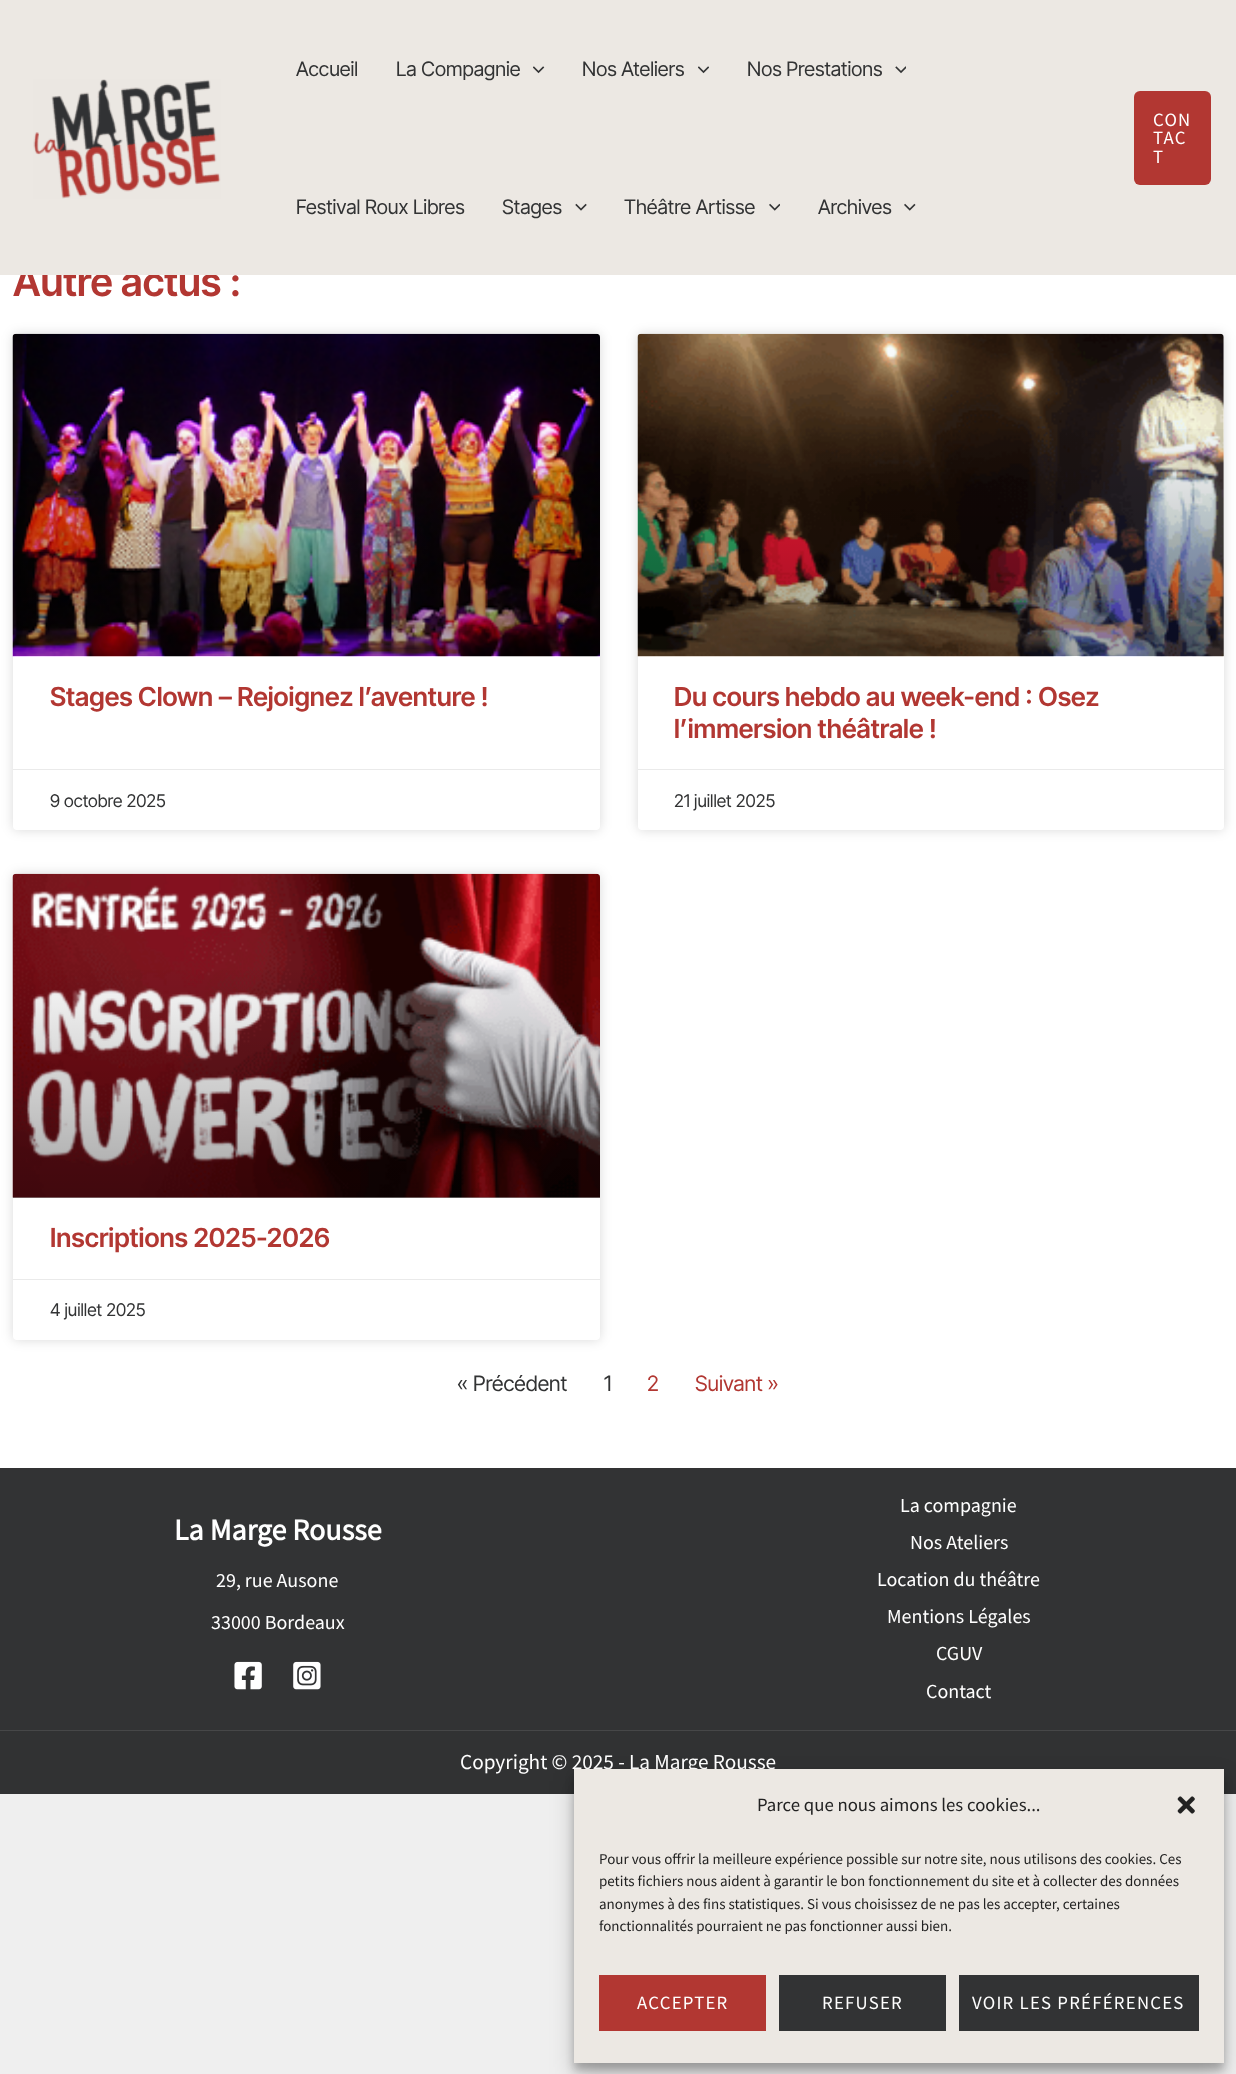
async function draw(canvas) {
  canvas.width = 1236;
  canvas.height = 2074;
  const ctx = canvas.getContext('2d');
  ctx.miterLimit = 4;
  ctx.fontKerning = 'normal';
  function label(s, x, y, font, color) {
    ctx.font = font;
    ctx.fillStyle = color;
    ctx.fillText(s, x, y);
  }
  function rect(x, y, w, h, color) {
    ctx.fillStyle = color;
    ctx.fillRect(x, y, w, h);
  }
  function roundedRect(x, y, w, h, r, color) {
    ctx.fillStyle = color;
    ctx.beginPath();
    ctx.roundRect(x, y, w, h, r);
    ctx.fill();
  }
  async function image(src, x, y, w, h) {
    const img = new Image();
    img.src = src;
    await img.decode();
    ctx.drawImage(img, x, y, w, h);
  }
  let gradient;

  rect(0, 0, 1236, 2074, '#efefef');
  rect(0, 275, 1236, 1193, '#fff');
  label('Autre actus :', 13, 296, '600 40px Inter Tight', '#b23732');
  rect(0, 0, 1236, 275, '#ece8e3');
  await image('assets/img1.png', 33, 79, 188, 120);
  label('Accueil', 296, 76, '20px Inter Tight', '#323334');
  label('La Compagnie', 396, 76, '20px Inter Tight', '#323334');
  await image('assets/img2.png', 533, 66, 12, 8);
  label('Nos Ateliers', 582, 76, '20px Inter Tight', '#323334');
  await image('assets/img3.png', 698, 66, 11, 8);
  label('Nos Prestations', 747, 76, '20px Inter Tight', '#323334');
  await image('assets/img4.png', 895, 66, 11, 8);
  label('Festival Roux Libres', 296, 214, '20px Inter Tight', '#323334');
  label('Stages', 502, 214, '20px Inter Tight', '#323334');
  await image('assets/img5.png', 575, 203, 12, 8);
  label('Théâtre Artisse', 624, 214, '20px Inter Tight', '#323334');
  await image('assets/img6.png', 769, 203, 11, 8);
  label('Archives', 818, 214, '20px Inter Tight', '#323334');
  await image('assets/img7.png', 904, 203, 12, 8);
  roundedRect(1134, 91, 77, 94, 6, '#b23732');
  ctx.letterSpacing = '1.25px';
  label('CON', 1153, 126, '18.75px Source Sans Pro', '#fff');
  label('TAC', 1153, 144, '18.75px Source Sans Pro', '#fff');
  label('T', 1153, 163, '18.75px Source Sans Pro', '#fff');
  ctx.fillStyle = '#00000026';
  ctx.filter = 'blur(6px)';
  ctx.beginPath();
  ctx.roundRect(13, 334, 587, 496, 4);
  ctx.fill();
  ctx.filter = 'none';
  roundedRect(13, 334, 587, 496, 4, '#fff');
  await image('assets/img8.png', 12, 333, 588, 324);
  gradient = ctx.createLinearGradient(306, 656, 306, 334);
  gradient.addColorStop(0, '#00000059');
  gradient.addColorStop(0.75, '#00000000');
  ctx.fillStyle = gradient;
  ctx.fillRect(13, 429, 587, 227);
  ctx.letterSpacing = '0px';
  label('Stages Clown – Rejoignez l’aventure !', 50, 706, '600 26.25px Inter Tight', '#b23732');
  rect(13, 769, 587, 1, '#eaeaea');
  label('9 octobre 2025', 50, 807, '17.5px Inter Tight', '#323334');
  ctx.fillStyle = '#00000026';
  ctx.filter = 'blur(6px)';
  ctx.beginPath();
  ctx.roundRect(638, 334, 586, 496, 4);
  ctx.fill();
  ctx.filter = 'none';
  roundedRect(638, 334, 586, 496, 4, '#fff');
  await image('assets/img9.png', 637, 333, 587, 324);
  gradient = ctx.createLinearGradient(931, 656, 931, 334);
  gradient.addColorStop(0, '#00000059');
  gradient.addColorStop(0.75, '#00000000');
  ctx.fillStyle = gradient;
  ctx.fillRect(638, 429, 586, 227);
  label('Du cours hebdo au week-end : Osez', 674, 706, '600 26.25px Inter Tight', '#b23732');
  label('l’immersion théâtrale !', 674, 738, '600 26.25px Inter Tight', '#b23732');
  rect(638, 769, 586, 1, '#eaeaea');
  label('21 juillet 2025', 674, 807, '17.5px Inter Tight', '#323334');
  ctx.fillStyle = '#00000026';
  ctx.filter = 'blur(6px)';
  ctx.beginPath();
  ctx.roundRect(13, 874, 587, 466, 4);
  ctx.fill();
  ctx.filter = 'none';
  roundedRect(13, 874, 587, 466, 4, '#fff');
  await image('assets/img10.png', 12, 873, 588, 325);
  gradient = ctx.createLinearGradient(306, 1198, 306, 874);
  gradient.addColorStop(0, '#00000059');
  gradient.addColorStop(0.75, '#00000000');
  ctx.fillStyle = gradient;
  ctx.fillRect(13, 970, 587, 228);
  label('Inscriptions 2025-2026', 50, 1247, '600 26.25px Inter Tight', '#b23732');
  rect(13, 1279, 587, 1, '#eaeaea');
  label('4 juillet 2025', 50, 1316, '17.5px Inter Tight', '#323334');
  label('« Précédent', 457, 1391, '21.25px Inter Tight', '#323334');
  label('1', 604, 1391, '21.25px Inter Tight', '#323334');
  label('2', 647, 1391, '21.25px Inter Tight', '#b23732');
  label('Suivant »', 695, 1391, '21.25px Inter Tight', '#b23732');
  rect(0, 1468, 1236, 262, '#323334');
  label('La Marge Rousse', 174, 1540, 'bold 30px Source Sans Pro', '#fff');
  label('29, rue Ausone', 216, 1587, '20px Source Sans Pro', '#fff');
  label('33000 Bordeaux', 211, 1629, '20px Source Sans Pro', '#fff');
  await image('assets/img11.png', 234, 1661, 28, 29);
  await image('assets/img12.png', 293, 1661, 28, 29);
  label('La compagnie', 900, 1512, '20px Source Sans Pro', '#fff');
  label('Nos Ateliers', 910, 1549, '20px Source Sans Pro', '#fff');
  label('Location du théâtre', 877, 1586, '20px Source Sans Pro', '#fff');
  label('Mentions Légales', 887, 1623, '20px Source Sans Pro', '#fff');
  label('CGUV', 936, 1660, '20px Source Sans Pro', '#fff');
  label('Contact', 926, 1698, '20px Source Sans Pro', '#fff');
  rect(0, 1731, 1236, 63, '#313233');
  rect(0, 1730, 1236, 1, '#464748');
  label('Copyright © 2025 - La Marge Rousse', 460, 1769, '21.25px Source Sans Pro', '#fff');
  ctx.fillStyle = '#0000003b';
  ctx.filter = 'blur(4px)';
  ctx.beginPath();
  ctx.rect(574, 1776, 650, 294);
  ctx.fill();
  ctx.filter = 'none';
  ctx.fillStyle = '#00000030';
  ctx.filter = 'blur(12.5px)';
  ctx.beginPath();
  ctx.rect(574, 1781, 650, 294);
  ctx.fill();
  ctx.filter = 'none';
  rect(574, 1769, 650, 294, '#ece8e3');
  label('Parce que nous aimons les cookies...', 757, 1811, '18.75px Source Sans Pro', '#222');
  await image('assets/img13.png', 1177, 1796, 18, 18);
  label('Pour vous offrir la meilleure expérience possible sur notre site, nous utilisons des cookies. Ces', 599, 1864, '15px Source Sans Pro', '#222');
  label('petits fichiers nous aident à garantir le bon fonctionnement du site et à collecter des données', 599, 1886, '15px Source Sans Pro', '#222');
  label('anonymes à des fins statistiques. Si vous choisissez de ne pas les accepter, certaines', 599, 1909, '15px Source Sans Pro', '#222');
  label('fonctionnalités pourraient ne pas fonctionner aussi bien.', 599, 1931, '15px Source Sans Pro', '#222');
  rect(599, 1975, 167, 56, '#b23732');
  ctx.letterSpacing = '1.25px';
  label('ACCEPTER', 637, 2009, '18.75px Source Sans Pro', '#fff');
  rect(779, 1975, 167, 56, '#323334');
  label('REFUSER', 822, 2009, '18.75px Source Sans Pro', '#fff');
  rect(959, 1975, 240, 56, '#323334');
  label('VOIR LES PRÉFÉRENCES', 972, 2009, '18.75px Source Sans Pro', '#fff');
}

draw(document.querySelector('canvas'));
